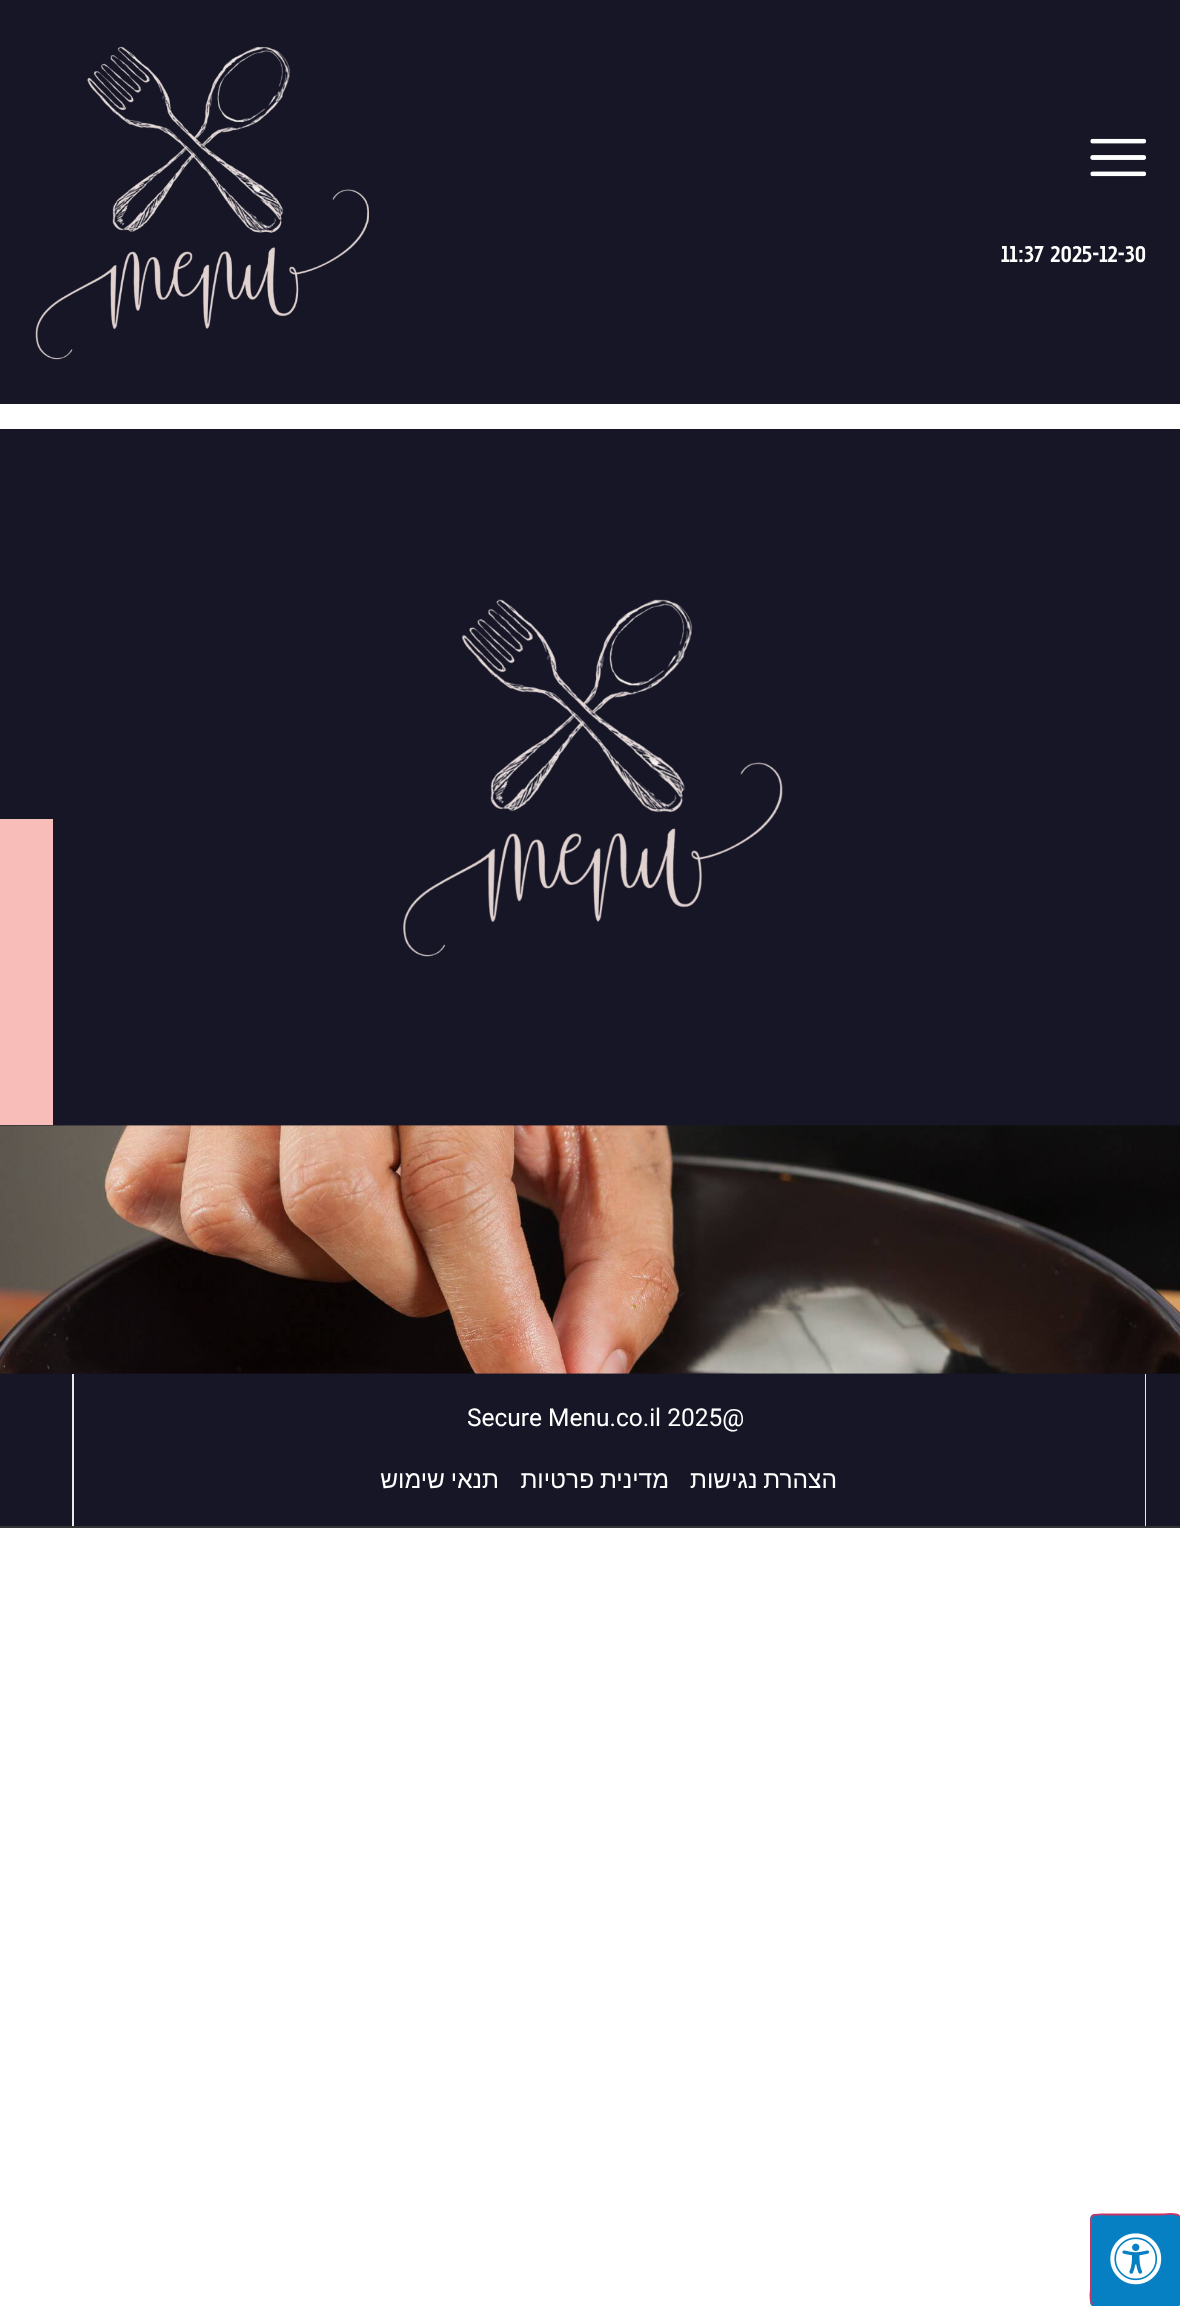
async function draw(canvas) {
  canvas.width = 1180;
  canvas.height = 2306;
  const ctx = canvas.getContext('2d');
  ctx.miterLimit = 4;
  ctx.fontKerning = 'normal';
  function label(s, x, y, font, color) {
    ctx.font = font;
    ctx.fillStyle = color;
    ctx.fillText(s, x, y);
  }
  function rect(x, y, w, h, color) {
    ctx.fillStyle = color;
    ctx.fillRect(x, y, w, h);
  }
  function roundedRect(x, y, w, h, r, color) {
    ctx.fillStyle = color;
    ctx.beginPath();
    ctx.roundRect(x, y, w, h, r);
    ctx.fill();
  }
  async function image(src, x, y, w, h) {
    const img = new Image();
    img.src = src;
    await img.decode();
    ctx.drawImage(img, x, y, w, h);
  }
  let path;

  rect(0, 0, 1180, 2306, '#fff');
  rect(0, 0, 1180, 404, '#161626');
  await image('assets/img1.png', 35, 46, 334, 314);
  await image('assets/img2.png', 1090, 138, 56, 39);
  label('11:37 2025-12-30', 1001, 262, '500 28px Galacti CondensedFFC', '#fff');
  rect(0, 429, 1180, 1097, '#161626');
  rect(0, 819, 53, 306, '#f8bdb9');
  await image('assets/img3.png', 403, 599, 380, 358);
  await image('assets/img4.png', 0, 1125, 1180, 249);
  rect(0, 1526, 1180, 2, '#333');
  rect(1145, 1374, 1, 152, '#e9e9e9');
  rect(72, 1374, 2, 152, '#e9e9e9');
  label('Secure Menu.co.il 2025@', 467, 1426, '24.5px Roboto', '#fff');
  ctx.wordSpacing = '-1px';
  ctx.direction = 'rtl';
  label('תנאי שימוש', 499, 1488, '24.5px Liberation Sans', '#fff');
  label('מדינית פרטיות', 669, 1488, '24.5px Liberation Sans', '#fff');
  label('הצהרת נגישות', 837, 1488, '24.5px Liberation Sans', '#fff');
  roundedRect(1090, 2214, 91, 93, 5, '#0780c3');
  path = new Path2D('M1179 2216C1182.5 2219 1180.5 2232 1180.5 2232.5V2287.5C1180.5 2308 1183 2305.5 1162.5 2305.5H1109C1108 2305.5 1095.5 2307.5 1092.5 2304.5');
  ctx.strokeStyle = '#0780c3';
  ctx.lineWidth = 1.8;
  ctx.stroke(path);
  path = new Path2D('M1092.5 2304.5C1089 2301 1091 2288.5 1091 2287.5V2232.5C1091 2212 1088.5 2214.5 1109 2214.5H1162.5C1163.5 2214.5 1176 2212.5 1179 2216');
  ctx.strokeStyle = '#c36';
  ctx.stroke(path);
  await image('assets/img5.png', 1110, 2233, 52, 52);
}

draw(document.querySelector('canvas'));
